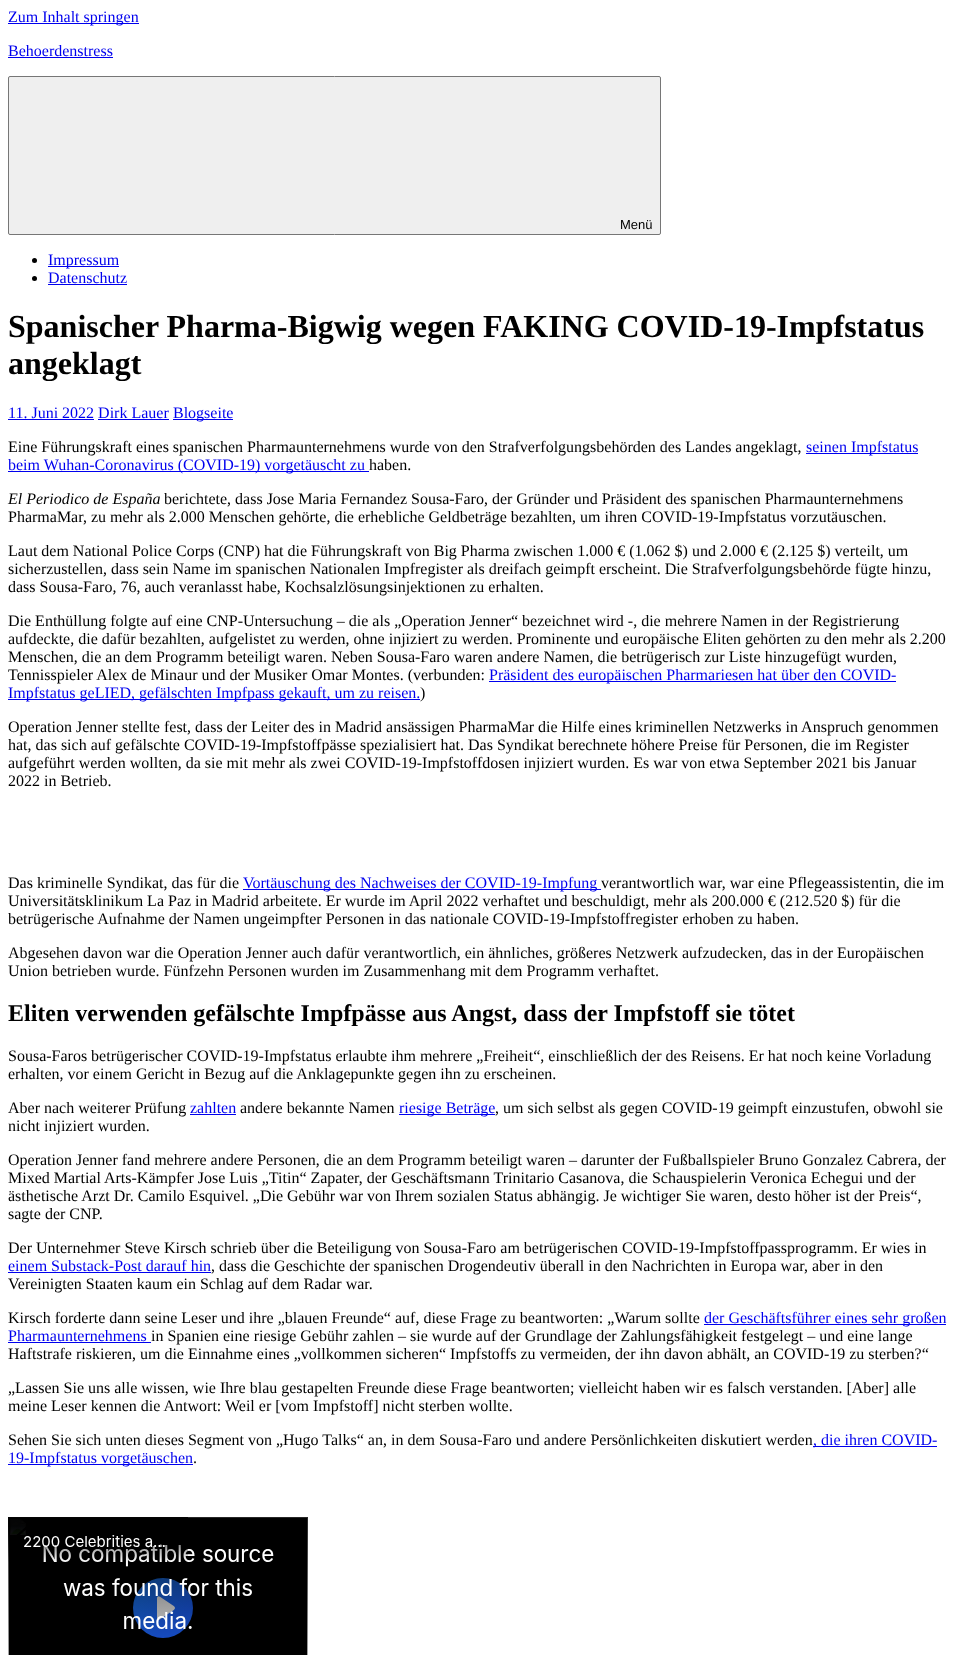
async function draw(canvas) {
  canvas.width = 956;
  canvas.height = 1655;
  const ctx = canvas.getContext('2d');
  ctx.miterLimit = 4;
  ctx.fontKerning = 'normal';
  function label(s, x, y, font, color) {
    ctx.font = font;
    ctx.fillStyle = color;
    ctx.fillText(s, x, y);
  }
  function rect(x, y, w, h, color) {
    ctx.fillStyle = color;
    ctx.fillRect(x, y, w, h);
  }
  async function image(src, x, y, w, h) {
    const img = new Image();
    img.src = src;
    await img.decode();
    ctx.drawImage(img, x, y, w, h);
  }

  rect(0, 0, 956, 1655, '#fff');
  rect(8, 23, 131, 1, '#00e');
  label('Zum Inhalt springen', 8, 22, '16px Liberation Serif', '#00e');
  label('Behoerdenstress', 8, 56, '16px Liberation Serif', '#00e');
  rect(8, 57, 105, 1, '#00e');
  ctx.fillStyle = '#efefef';
  ctx.beginPath();
  ctx.roundRect(8.5, 76.5, 652, 158, 1.5);
  ctx.fill();
  ctx.strokeStyle = '#767676';
  ctx.stroke();
  label('Menü', 620, 229, '13px Liberation Sans', '#000');
  ctx.beginPath();
  ctx.arc(34.5, 260.5, 2.5, 0, 2 * Math.PI);
  ctx.fill();
  rect(48, 266, 71, 1, '#00e');
  label('Impressum', 48, 265, '16px Liberation Serif', '#00e');
  ctx.fillStyle = '#000';
  ctx.beginPath();
  ctx.arc(34.5, 278.5, 2.5, 0, 2 * Math.PI);
  ctx.fill();
  label('Datenschutz', 48, 283, '16px Liberation Serif', '#00e');
  rect(48, 284, 79, 1, '#00e');
  label('Spanischer Pharma-Bigwig wegen FAKING COVID-19-Impfstatus', 8, 337, 'bold 32px Liberation Serif', '#000');
  label('angeklagt', 8, 374, 'bold 32px Liberation Serif', '#000');
  label('11. Juni 2022 Dirk Lauer', 8, 418, '16px Liberation Serif', '#00e');
  rect(8, 419, 86, 1, '#00e');
  rect(173, 419, 60, 1, '#00e');
  label('Blogseite', 173, 418, '16px Liberation Serif', '#00e');
  rect(98, 419, 71, 1, '#00e');
  label('Eine Führungskraft eines spanischen Pharmaunternehmens wurde von den Strafverfolgungsbehörden des Landes angeklagt,', 8, 452, '16px Liberation Serif', '#000');
  rect(806, 453, 112, 1, '#00e');
  label('seinen Impfstatus', 806, 452, '16px Liberation Serif', '#00e');
  rect(8, 471, 361, 1, '#00e');
  label('beim Wuhan-Coronavirus (COVID-19) vorgetäuscht zu', 8, 470, '16px Liberation Serif', '#00e');
  label('haben.', 369, 470, '16px Liberation Serif', '#000');
  label('El Periodico de España', 8, 504, 'italic 16px Liberation Serif', '#000');
  label('berichtete, dass Jose Maria Fernandez Sousa-Faro, der Gründer und Präsident des spanischen Pharmaunternehmens', 164, 504, '16px Liberation Serif', '#000');
  label('PharmaMar, zu mehr als 2.000 Menschen gehörte, die erhebliche Geldbeträge bezahlten, um ihren COVID-19-Impfstatus vorzutäuschen.', 8, 522, '16px Liberation Serif', '#000');
  label('Laut dem National Police Corps (CNP) hat die Führungskraft von Big Pharma zwischen 1.000 € (1.062 $) und 2.000 € (2.125 $) verteilt, um', 8, 556, '16px Liberation Serif', '#000');
  label('sicherzustellen, dass sein Name im spanischen Nationalen Impfregister als dreifach geimpft erscheint. Die Strafverfolgungsbehörde fügte hinzu,', 8, 574, '16px Liberation Serif', '#000');
  label('dass Sousa-Faro, 76, auch veranlasst habe, Kochsalzlösungsinjektionen zu erhalten.', 8, 592, '16px Liberation Serif', '#000');
  label('Die Enthüllung folgte auf eine CNP-Untersuchung – die als „Operation Jenner“ bezeichnet wird -, die mehrere Namen in der Registrierung', 8, 626, '16px Liberation Serif', '#000');
  label('aufdeckte, die dafür bezahlten, aufgelistet zu werden, ohne injiziert zu werden. Prominente und europäische Eliten gehörten zu den mehr als 2.200', 8, 644, '16px Liberation Serif', '#000');
  label('Menschen, die an dem Programm beteiligt waren. Neben Sousa-Faro waren andere Namen, die betrügerisch zur Liste hinzugefügt wurden,', 8, 662, '16px Liberation Serif', '#000');
  label('Tennisspieler Alex de Minaur und der Musiker Omar Montes. (verbunden:', 8, 680, '16px Liberation Serif', '#000');
  rect(489, 681, 407, 1, '#00e');
  label('Präsident des europäischen Pharmariesen hat über den COVID-', 489, 680, '16px Liberation Serif', '#00e');
  rect(8, 699, 412, 1, '#00e');
  label('Impfstatus geLIED, gefälschten Impfpass gekauft, um zu reisen.', 8, 698, '16px Liberation Serif', '#00e');
  label(')', 420, 698, '16px Liberation Serif', '#000');
  label('Operation Jenner stellte fest, dass der Leiter des in Madrid ansässigen PharmaMar die Hilfe eines kriminellen Netzwerks in Anspruch genommen', 8, 732, '16px Liberation Serif', '#000');
  label('hat, das sich auf gefälschte COVID-19-Impfstoffpässe spezialisiert hat. Das Syndikat berechnete höhere Preise für Personen, die im Register', 8, 750, '16px Liberation Serif', '#000');
  label('aufgeführt werden wollten, da sie mit mehr als zwei COVID-19-Impfstoffdosen injiziert wurden. Es war von etwa September 2021 bis Januar', 8, 768, '16px Liberation Serif', '#000');
  label('2022 in Betrieb.', 8, 786, '16px Liberation Serif', '#000');
  label('Das kriminelle Syndikat, das für die', 8, 888, '16px Liberation Serif', '#000');
  rect(243, 889, 358, 1, '#00e');
  label('Vortäuschung des Nachweises der COVID-19-Impfung', 243, 888, '16px Liberation Serif', '#00e');
  label('verantwortlich war, war eine Pflegeassistentin, die im', 601, 888, '16px Liberation Serif', '#000');
  label('Universitätsklinikum La Paz in Madrid arbeitete. Er wurde im April 2022 verhaftet und beschuldigt, mehr als 200.000 € (212.520 $) für die', 8, 906, '16px Liberation Serif', '#000');
  label('betrügerische Aufnahme der Namen ungeimpfter Personen in das nationale COVID-19-Impfstoffregister erhoben zu haben.', 8, 924, '16px Liberation Serif', '#000');
  label('Abgesehen davon war die Operation Jenner auch dafür verantwortlich, ein ähnliches, größeres Netzwerk aufzudecken, das in der Europäischen', 8, 958, '16px Liberation Serif', '#000');
  label('Union betrieben wurde. Fünfzehn Personen wurden im Zusammenhang mit dem Programm verhaftet.', 8, 976, '16px Liberation Serif', '#000');
  label('Eliten verwenden gefälschte Impfpässe aus Angst, dass der Impfstoff sie tötet', 8, 1021, 'bold 24px Liberation Serif', '#000');
  label('Sousa-Faros betrügerischer COVID-19-Impfstatus erlaubte ihm mehrere „Freiheit“, einschließlich der des Reisens. Er hat noch keine Vorladung', 8, 1061, '16px Liberation Serif', '#000');
  label('erhalten, vor einem Gericht in Bezug auf die Anklagepunkte gegen ihn zu erscheinen.', 8, 1079, '16px Liberation Serif', '#000');
  label('Aber nach weiterer Prüfung', 8, 1113, '16px Liberation Serif', '#000');
  label('zahlten', 190, 1113, '16px Liberation Serif', '#00e');
  rect(190, 1114, 46, 1, '#00e');
  label('andere bekannte Namen', 240, 1113, '16px Liberation Serif', '#000');
  rect(399, 1114, 96, 1, '#00e');
  label('riesige Beträge', 399, 1113, '16px Liberation Serif', '#00e');
  label(', um sich selbst als gegen COVID-19 geimpft einzustufen, obwohl sie', 495, 1113, '16px Liberation Serif', '#000');
  label('nicht injiziert wurden.', 8, 1131, '16px Liberation Serif', '#000');
  label('Operation Jenner fand mehrere andere Personen, die an dem Programm beteiligt waren – darunter der Fußballspieler Bruno Gonzalez Cabrera, der', 8, 1165, '16px Liberation Serif', '#000');
  label('Mixed Martial Arts-Kämpfer Jose Luis „Titin“ Zapater, der Geschäftsmann Trinitario Casanova, die Schauspielerin Veronica Echegui und der', 8, 1183, '16px Liberation Serif', '#000');
  label('ästhetische Arzt Dr. Camilo Esquivel. „Die Gebühr war von Ihrem sozialen Status abhängig. Je wichtiger Sie waren, desto höher ist der Preis“,', 8, 1201, '16px Liberation Serif', '#000');
  label('sagte der CNP.', 8, 1219, '16px Liberation Serif', '#000');
  label('Der Unternehmer Steve Kirsch schrieb über die Beteiligung von Sousa-Faro am betrügerischen COVID-19-Impfstoffpassprogramm. Er wies in', 8, 1253, '16px Liberation Serif', '#000');
  label('einem Substack-Post darauf hin', 8, 1271, '16px Liberation Serif', '#00e');
  rect(8, 1272, 203, 1, '#00e');
  label(', dass die Geschichte der spanischen Drogendeutiv überall in den Nachrichten in Europa war, aber in den', 211, 1271, '16px Liberation Serif', '#000');
  label('Vereinigten Staaten kaum ein Schlag auf dem Radar war.', 8, 1289, '16px Liberation Serif', '#000');
  label('Kirsch forderte dann seine Leser und ihre „blauen Freunde“ auf, diese Frage zu beantworten: „Warum sollte', 8, 1323, '16px Liberation Serif', '#000');
  rect(704, 1324, 242, 1, '#00e');
  label('der Geschäftsführer eines sehr großen', 704, 1323, '16px Liberation Serif', '#00e');
  label('Pharmaunternehmens', 8, 1341, '16px Liberation Serif', '#00e');
  rect(8, 1342, 143, 1, '#00e');
  label('in Spanien eine riesige Gebühr zahlen – sie wurde auf der Grundlage der Zahlungsfähigkeit festgelegt – und eine lange', 151, 1341, '16px Liberation Serif', '#000');
  label('Haftstrafe riskieren, um die Einnahme eines „vollkommen sicheren“ Impfstoffs zu vermeiden, der ihn davon abhält, an COVID-19 zu sterben?“', 8, 1359, '16px Liberation Serif', '#000');
  label('„Lassen Sie uns alle wissen, wie Ihre blau gestapelten Freunde diese Frage beantworten; vielleicht haben wir es falsch verstanden. [Aber] alle', 8, 1393, '16px Liberation Serif', '#000');
  label('meine Leser kennen die Antwort: Weil er [vom Impfstoff] nicht sterben wollte.', 8, 1411, '16px Liberation Serif', '#000');
  label('Sehen Sie sich unten dieses Segment von „Hugo Talks“ an, in dem Sousa-Faro und andere Persönlichkeiten diskutiert werden', 8, 1445, '16px Liberation Serif', '#000');
  rect(813, 1446, 124, 1, '#00e');
  label(', die ihren COVID-', 813, 1445, '16px Liberation Serif', '#00e');
  rect(8, 1464, 185, 1, '#00e');
  label('19-Impfstatus vorgetäuschen', 8, 1463, '16px Liberation Serif', '#00e');
  label('.', 193, 1463, '16px Liberation Serif', '#000');
  await image('assets/img1.png', 8, 1517, 300, 138);
}

draw(document.querySelector('canvas'));
